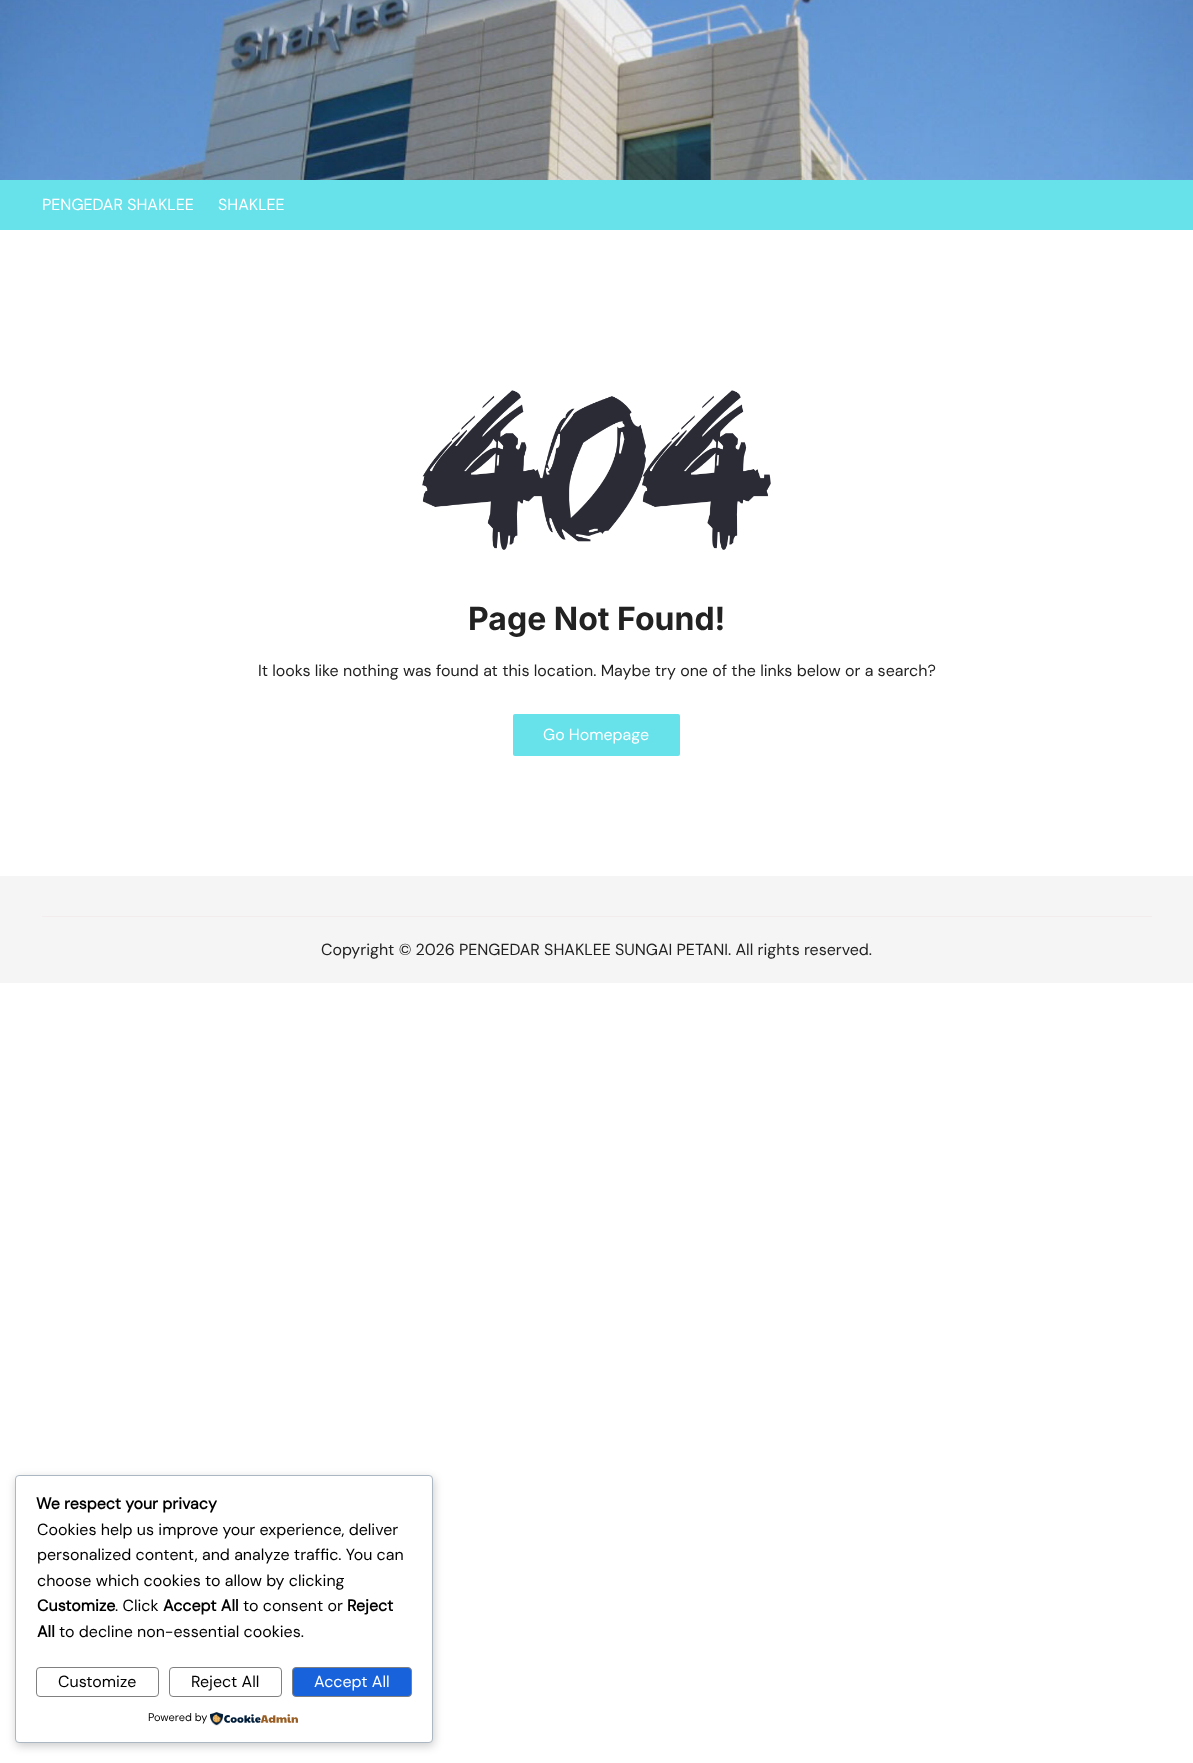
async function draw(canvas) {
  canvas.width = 1193;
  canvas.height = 1763;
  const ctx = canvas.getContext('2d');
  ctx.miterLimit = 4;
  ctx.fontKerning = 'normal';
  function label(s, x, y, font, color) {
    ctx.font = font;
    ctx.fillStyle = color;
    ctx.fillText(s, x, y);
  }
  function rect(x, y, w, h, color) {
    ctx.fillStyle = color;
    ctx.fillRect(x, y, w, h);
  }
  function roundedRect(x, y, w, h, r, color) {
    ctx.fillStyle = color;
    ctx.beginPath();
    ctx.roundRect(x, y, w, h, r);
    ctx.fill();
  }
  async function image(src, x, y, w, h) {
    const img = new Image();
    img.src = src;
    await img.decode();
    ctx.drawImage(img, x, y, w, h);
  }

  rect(0, 0, 1193, 1763, '#fff');
  await image('assets/img1.png', 0, 0, 1193, 180);
  rect(0, 180, 1193, 50, '#67e1ea');
  label('PENGEDAR SHAKLEE', 42, 210, '16px DM Sans', '#fff');
  label('SHAKLEE', 218, 210, '16px DM Sans', '#fff');
  await image('assets/img2.png', 422, 390, 349, 160);
  label('Page Not Found!', 468, 630, 'bold 32px Inter', '#222');
  label('It looks like nothing was found at this location. Maybe try one of the links below or a search?', 258, 676, '16px DM Sans', '#222');
  roundedRect(513, 714, 167, 42, 2, '#67e1ea');
  label('Go Homepage', 543, 740, '16px DM Sans', '#fff');
  rect(0, 876, 1193, 107, '#f5f5f5');
  rect(42, 916, 1110, 1, '#f3ecec');
  label('Copyright © 2026 PENGEDAR SHAKLEE SUNGAI PETANI. All rights reserved.', 321, 955, '16px DM Sans', '#222');
  ctx.fillStyle = '#00000033';
  ctx.filter = 'blur(5px)';
  ctx.beginPath();
  ctx.roundRect(16, 1478, 418, 268, 4);
  ctx.fill();
  ctx.filter = 'none';
  ctx.fillStyle = '#fff';
  ctx.beginPath();
  ctx.roundRect(15.5, 1475.5, 417, 267, 3.5);
  ctx.fill();
  ctx.strokeStyle = '#abb8c3';
  ctx.stroke();
  label('We respect your privacy', 36, 1509, 'bold 16px DM Sans', '#000');
  label('Cookies help us improve your experience, deliver', 37, 1535, '16px DM Sans', '#000');
  label('personalized content, and analyze traffic. You can', 37, 1560, '16px DM Sans', '#000');
  label('choose which cookies to allow by clicking', 37, 1586, '16px DM Sans', '#000');
  label('Customize', 37, 1611, 'bold 16px DM Sans', '#000');
  label('. Click', 115, 1611, '16px DM Sans', '#000');
  label('Accept All', 163, 1611, 'bold 16px DM Sans', '#000');
  label('to consent or', 243, 1611, '16px DM Sans', '#000');
  label('Reject', 347, 1611, 'bold 16px DM Sans', '#000');
  label('All', 37, 1637, 'bold 16px DM Sans', '#000');
  label('to decline non-essential cookies.', 59, 1637, '16px DM Sans', '#000');
  ctx.beginPath();
  ctx.roundRect(36.5, 1667.5, 122, 29, 3.5);
  ctx.strokeStyle = '#808080';
  ctx.stroke();
  label('Customize', 58, 1687, '16px DM Sans', '#000');
  ctx.beginPath();
  ctx.roundRect(169.5, 1667.5, 112, 29, 3.5);
  ctx.stroke();
  label('Reject All', 191, 1687, '16px DM Sans', '#000');
  ctx.fillStyle = '#1863dc';
  ctx.beginPath();
  ctx.roundRect(292.5, 1667.5, 119, 29, 3.5);
  ctx.fill();
  ctx.stroke();
  label('Accept All', 314, 1687, '16px DM Sans', '#fff');
  label('Powered by', 148, 1721, '11px DM Sans', '#000');
  await image('assets/img3.png', 210, 1712, 88, 14);
}

draw(document.querySelector('canvas'));
